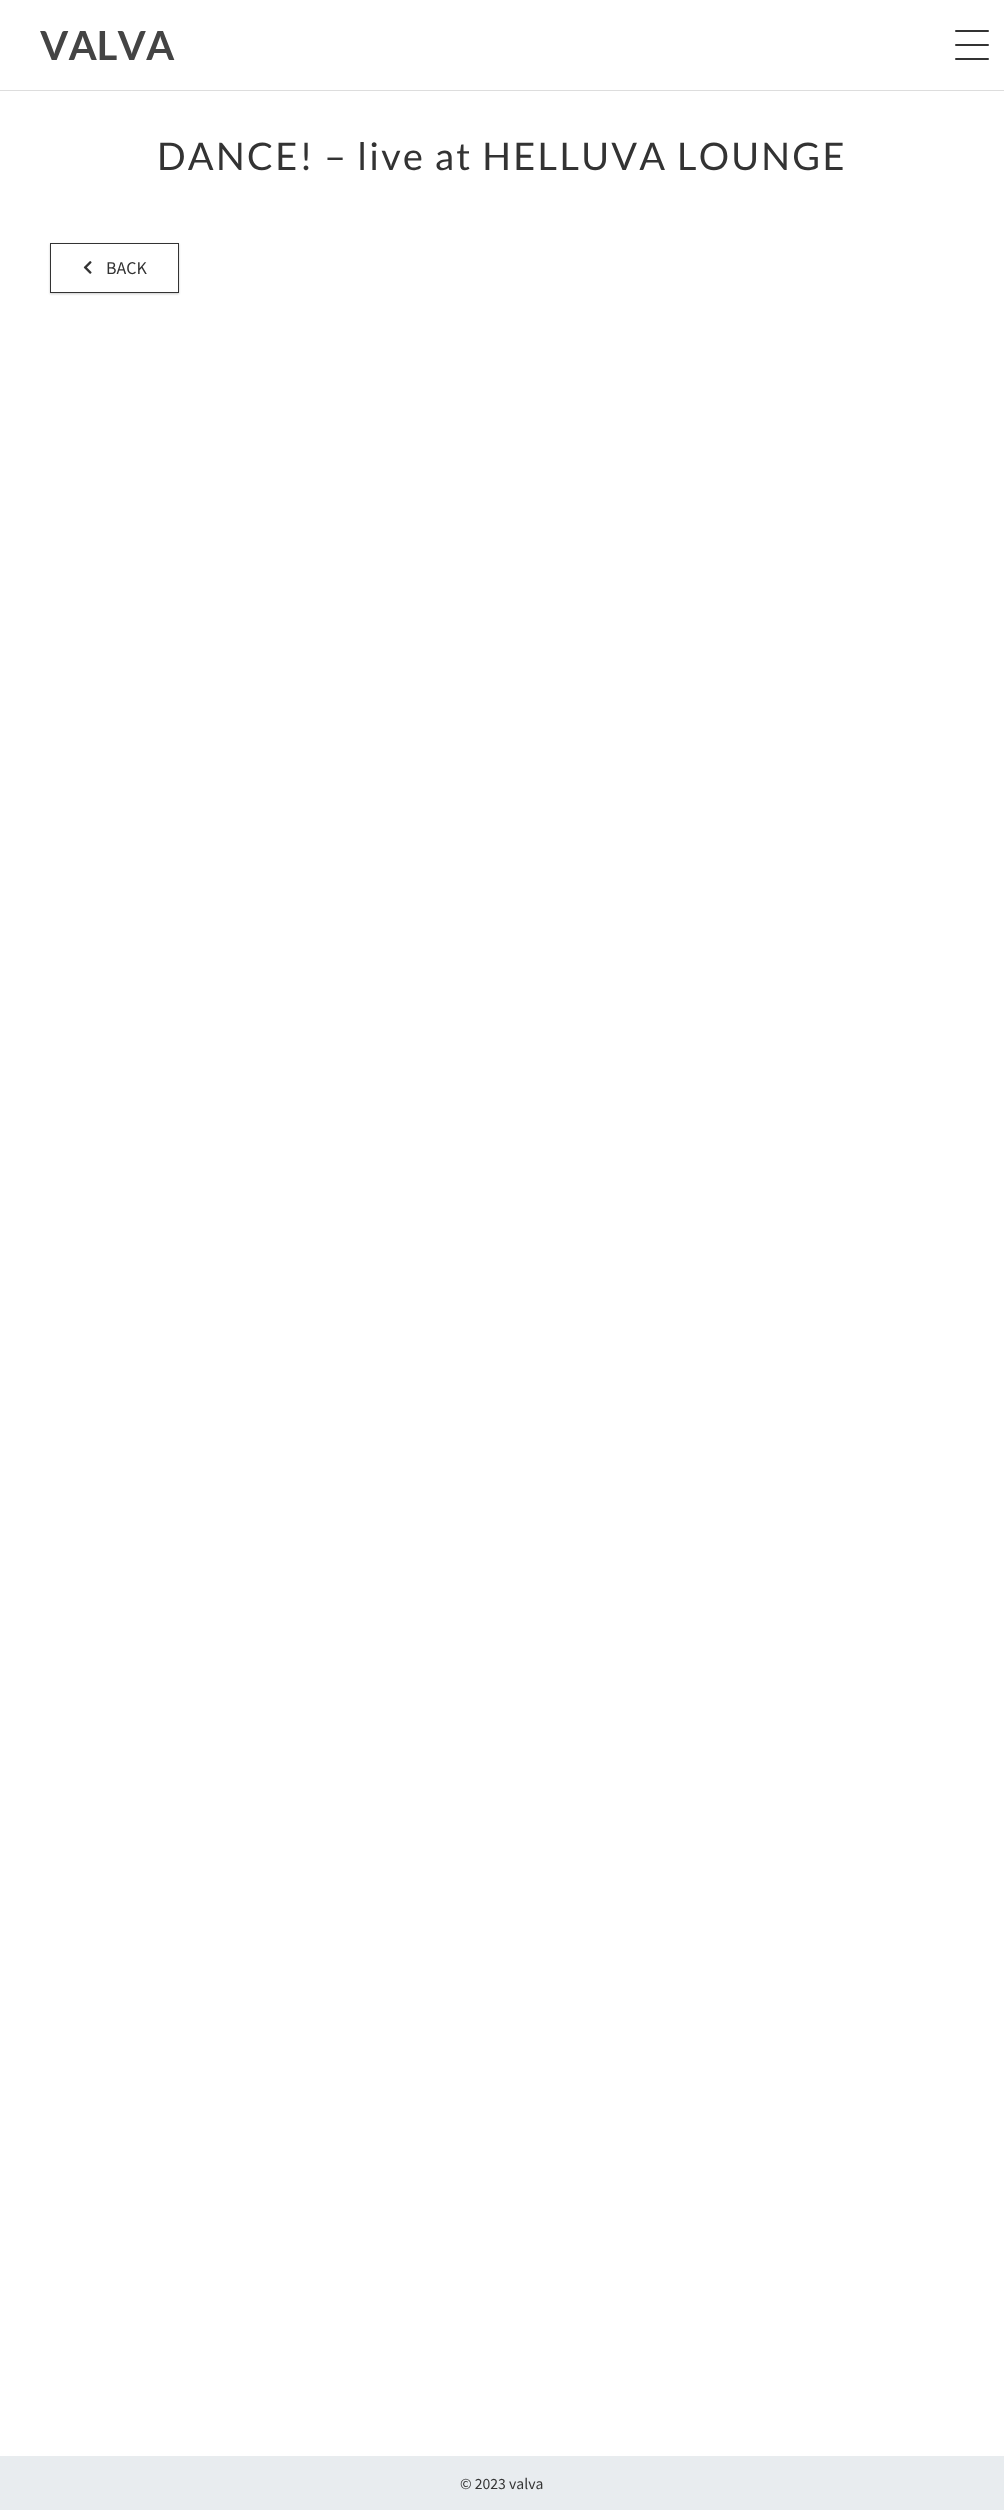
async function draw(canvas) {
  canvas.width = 1004;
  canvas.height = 2510;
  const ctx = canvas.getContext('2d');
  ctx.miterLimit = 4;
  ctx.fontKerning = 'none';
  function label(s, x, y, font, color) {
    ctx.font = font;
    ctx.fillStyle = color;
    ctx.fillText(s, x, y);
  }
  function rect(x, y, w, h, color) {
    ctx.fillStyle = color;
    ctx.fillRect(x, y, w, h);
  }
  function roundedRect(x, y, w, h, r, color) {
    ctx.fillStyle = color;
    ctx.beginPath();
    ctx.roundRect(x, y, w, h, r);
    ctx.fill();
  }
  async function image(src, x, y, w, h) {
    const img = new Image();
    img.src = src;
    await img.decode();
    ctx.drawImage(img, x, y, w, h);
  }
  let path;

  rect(0, 0, 1004, 2510, '#fff');
  rect(0, 90, 1004, 1, '#ddd');
  label('VALVA', 40, 60, 'bold 40px Lato', '#444');
  roundedRect(955, 30, 34, 2, 1, '#333');
  roundedRect(955, 44, 34, 2, 1, '#333');
  roundedRect(955, 58, 34, 2, 1, '#333');
  ctx.letterSpacing = '2.25px';
  label('DANCE! – live at HELLUVA LOUNGE', 157, 170, '38px Lato', '#333');
  ctx.save();
  path = new Path2D('M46 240H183V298H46ZM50 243H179V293H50Z');
  ctx.clip(path, 'evenodd');
  ctx.fillStyle = '#00000033';
  ctx.filter = 'blur(1px)';
  ctx.beginPath();
  ctx.rect(50, 244, 129, 50);
  ctx.fill();
  ctx.filter = 'none';
  ctx.restore();
  ctx.strokeStyle = '#333';
  ctx.strokeRect(50.5, 243.5, 128, 49);
  await image('assets/img1.png', 83, 261, 9, 13);
  ctx.letterSpacing = '0px';
  label('BACK', 106, 274, '16px Noto Sans JP', '#333');
  rect(0, 2456, 1004, 54, '#e8ecef');
  label('© 2023 valva', 460, 2489, '14px Noto Sans JP', '#333');
}

draw(document.querySelector('canvas'));
